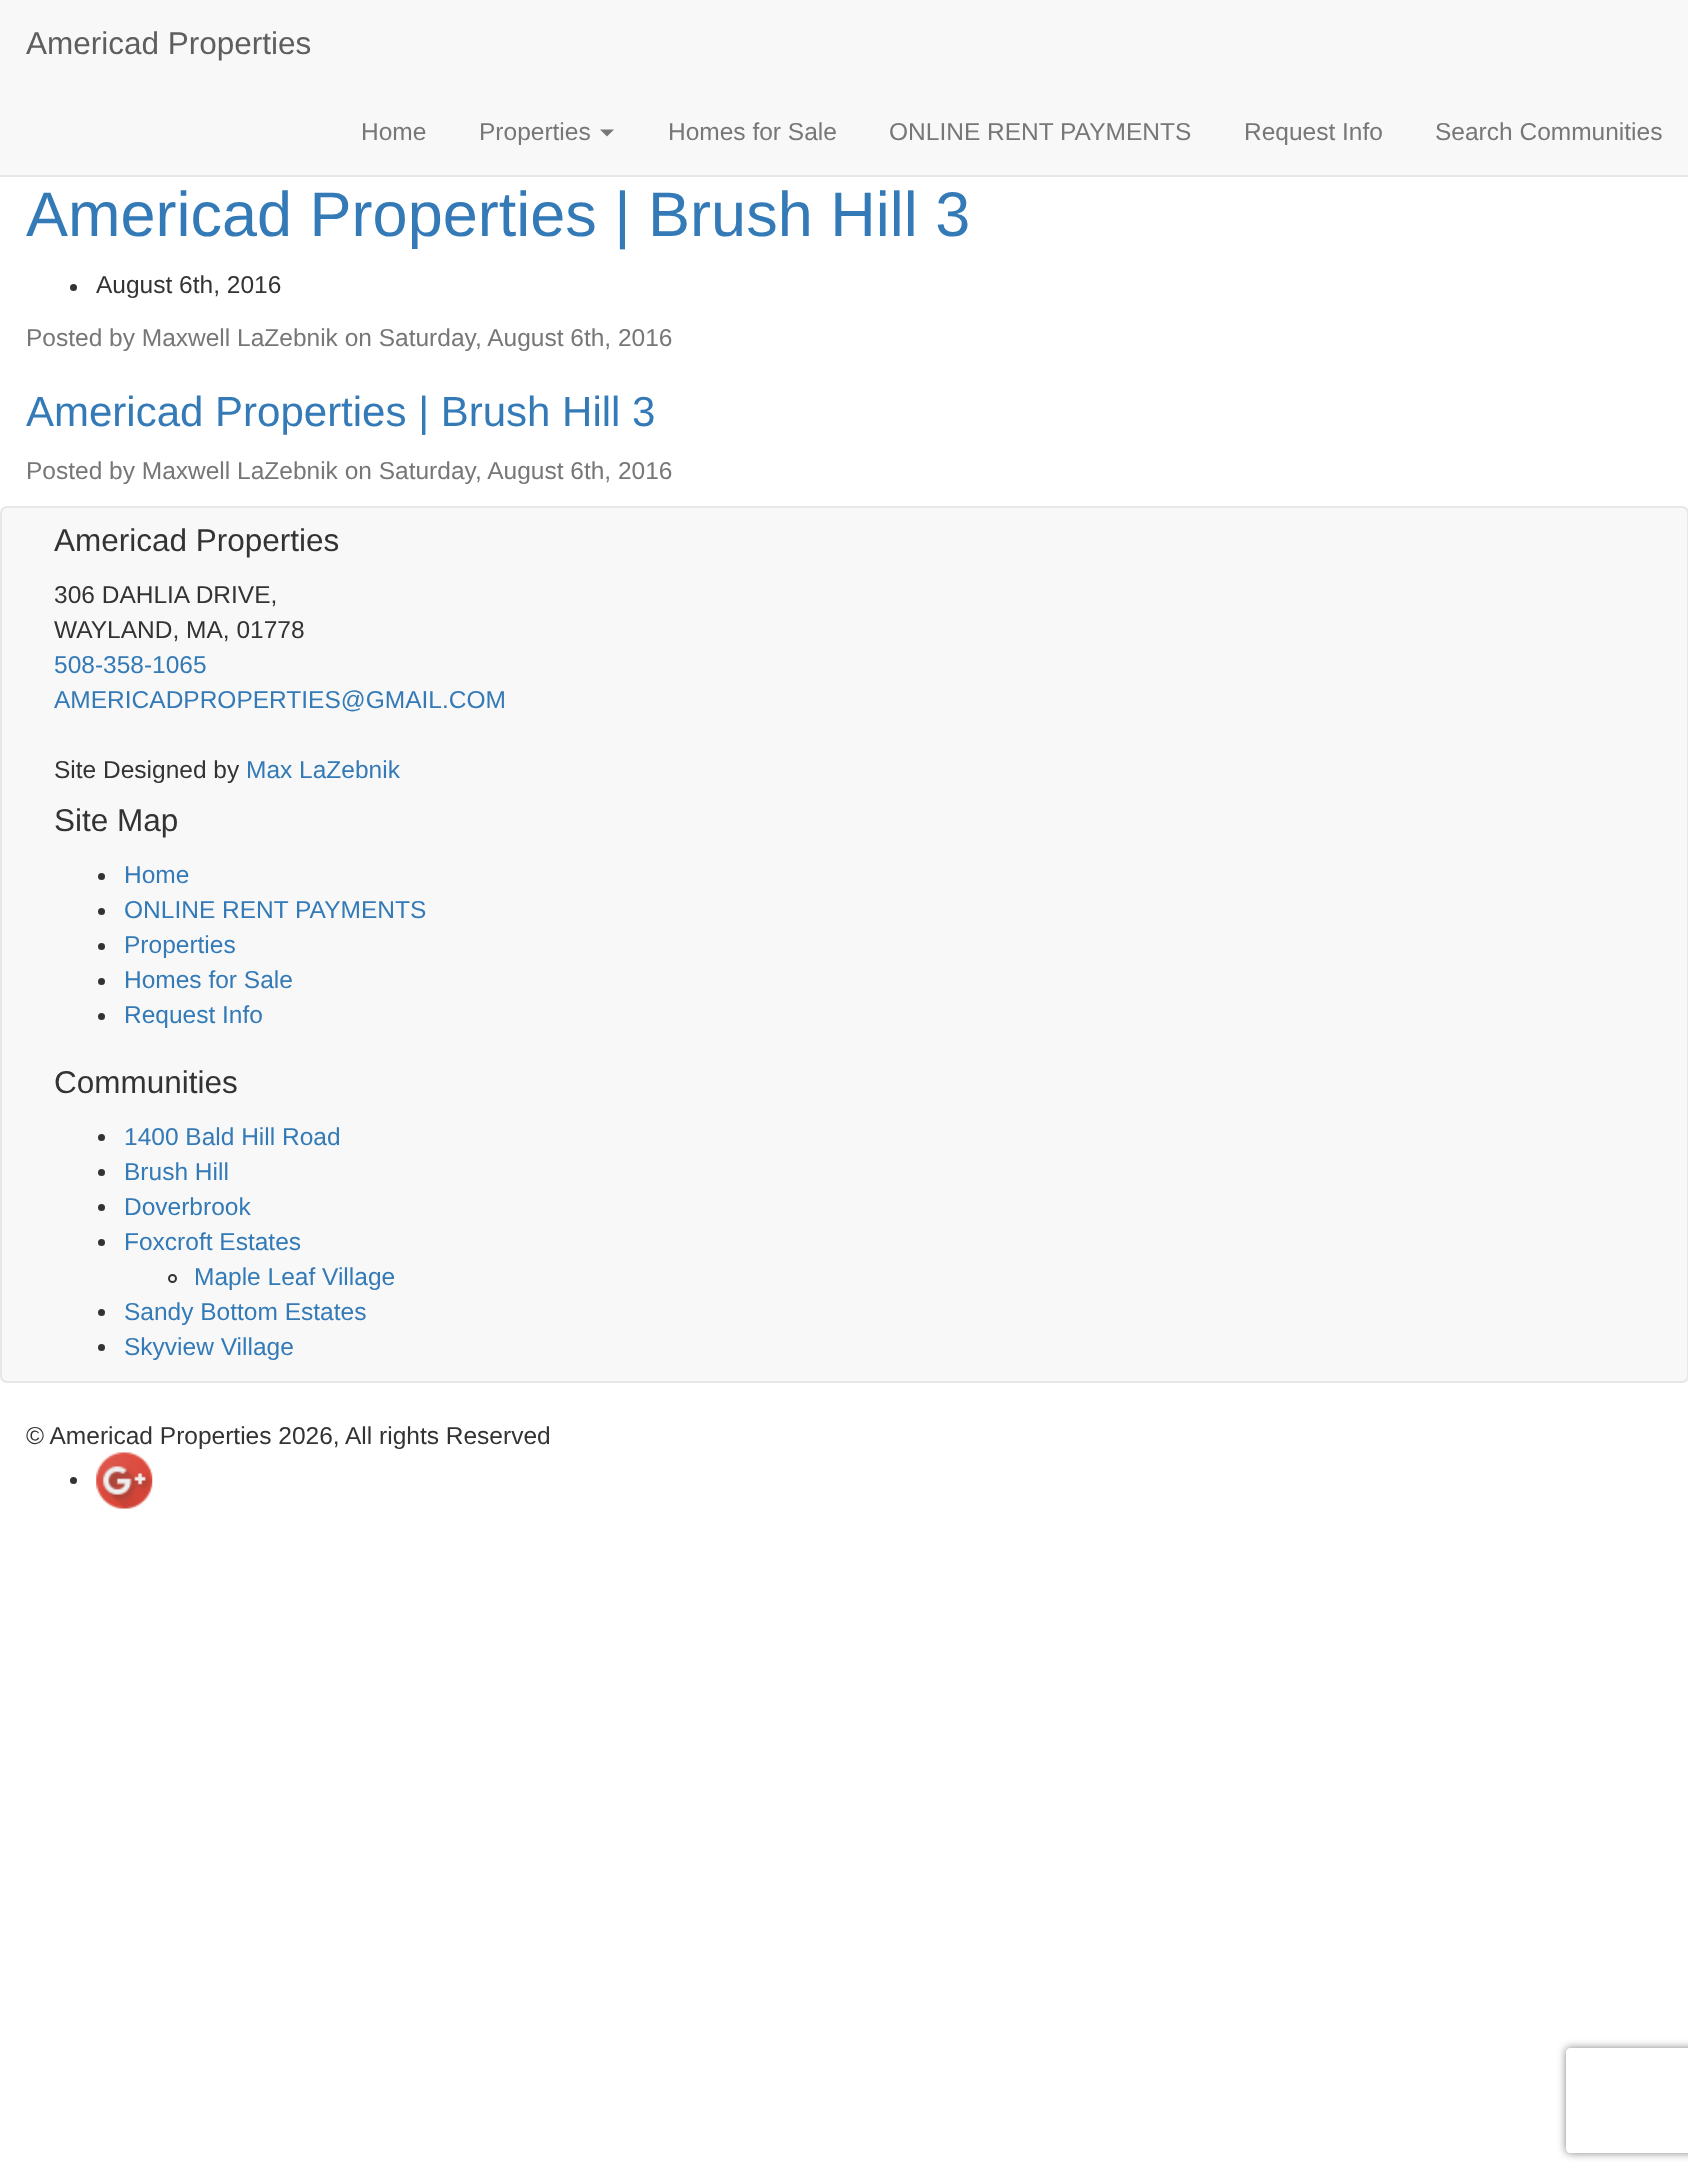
async function draw(canvas) {
  canvas.width = 1688;
  canvas.height = 2176;
  const ctx = canvas.getContext('2d');
  ctx.miterLimit = 4;
  ctx.fontKerning = 'normal';
  function label(s, x, y, font, color) {
    ctx.font = font;
    ctx.fillStyle = color;
    ctx.fillText(s, x, y);
  }
  function rect(x, y, w, h, color) {
    ctx.fillStyle = color;
    ctx.fillRect(x, y, w, h);
  }
  async function image(src, x, y, w, h) {
    const img = new Image();
    img.src = src;
    await img.decode();
    ctx.drawImage(img, x, y, w, h);
  }
  let path;

  rect(0, 0, 1688, 2176, '#fff');
  rect(0, 0, 1688, 175, '#f8f8f8');
  rect(0, 175, 1688, 2, '#e7e7e7');
  label('Americad Properties', 26, 54, '31.5px Liberation Sans', '#5e5e5e');
  label('Home', 361, 140, '24.5px Liberation Sans', '#777');
  label('Properties', 479, 140, '24.5px Liberation Sans', '#777');
  path = new Path2D('M600 129.5H614L607 136.5Z');
  ctx.fill(path);
  label('Homes for Sale', 668, 140, '24.5px Liberation Sans', '#777');
  label('ONLINE RENT PAYMENTS', 889, 140, '24.5px Liberation Sans', '#777');
  label('Request Info', 1244, 140, '24.5px Liberation Sans', '#777');
  label('Search Communities', 1435, 140, '24.5px Liberation Sans', '#777');
  label('Americad Properties | Brush Hill 3', 26, 236, '63px Liberation Sans', '#337ab7');
  ctx.fillStyle = '#333';
  ctx.beginPath();
  ctx.arc(73.5, 287.5, 3.5, 0, 2 * Math.PI);
  ctx.fill();
  label('August 6th, 2016', 96, 293, '24.5px Liberation Sans', '#333');
  label('Posted by Maxwell LaZebnik on Saturday, August 6th, 2016', 26, 346, '24.5px Liberation Sans', '#777');
  label('Americad Properties | Brush Hill 3', 26, 426, '42px Liberation Sans', '#337ab7');
  label('Posted by Maxwell LaZebnik on Saturday, August 6th, 2016', 26, 479, '24.5px Liberation Sans', '#777');
  ctx.fillStyle = '#f8f8f8';
  ctx.beginPath();
  ctx.roundRect(1, 507, 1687, 875, 6);
  ctx.fill();
  ctx.strokeStyle = '#e7e7e7';
  ctx.lineWidth = 2;
  ctx.stroke();
  label('Americad Properties', 54, 551, '31.5px Liberation Sans', '#333');
  label('306 DAHLIA DRIVE,', 54, 603, '24.5px Liberation Sans', '#333');
  label('WAYLAND, MA, 01778', 54, 638, '24.5px Liberation Sans', '#333');
  label('508-358-1065', 54, 673, '24.5px Liberation Sans', '#337ab7');
  label('AMERICADPROPERTIES@GMAIL.COM', 54, 708, '24.5px Liberation Sans', '#337ab7');
  label('Site Designed by', 54, 778, '24.5px Liberation Sans', '#333');
  label('Max LaZebnik', 246, 778, '24.5px Liberation Sans', '#337ab7');
  label('Site Map', 54, 831, '31.5px Liberation Sans', '#333');
  ctx.beginPath();
  ctx.arc(101.5, 876.5, 3.5, 0, 2 * Math.PI);
  ctx.fill();
  label('Home', 124, 883, '24.5px Liberation Sans', '#337ab7');
  ctx.fillStyle = '#333';
  ctx.beginPath();
  ctx.arc(101.5, 911.5, 3.5, 0, 2 * Math.PI);
  ctx.fill();
  label('ONLINE RENT PAYMENTS', 124, 918, '24.5px Liberation Sans', '#337ab7');
  ctx.fillStyle = '#333';
  ctx.beginPath();
  ctx.arc(101.5, 946.5, 3.5, 0, 2 * Math.PI);
  ctx.fill();
  label('Properties', 124, 953, '24.5px Liberation Sans', '#337ab7');
  ctx.fillStyle = '#333';
  ctx.beginPath();
  ctx.arc(101.5, 981.5, 3.5, 0, 2 * Math.PI);
  ctx.fill();
  label('Homes for Sale', 124, 988, '24.5px Liberation Sans', '#337ab7');
  ctx.fillStyle = '#333';
  ctx.beginPath();
  ctx.arc(101.5, 1016.5, 3.5, 0, 2 * Math.PI);
  ctx.fill();
  label('Request Info', 124, 1023, '24.5px Liberation Sans', '#337ab7');
  label('Communities', 54, 1093, '31.5px Liberation Sans', '#333');
  ctx.beginPath();
  ctx.arc(101.5, 1137.5, 3.5, 0, 2 * Math.PI);
  ctx.fill();
  label('1400 Bald Hill Road', 124, 1145, '24.5px Liberation Sans', '#337ab7');
  ctx.fillStyle = '#333';
  ctx.beginPath();
  ctx.arc(101.5, 1172.5, 3.5, 0, 2 * Math.PI);
  ctx.fill();
  label('Brush Hill', 124, 1180, '24.5px Liberation Sans', '#337ab7');
  ctx.fillStyle = '#333';
  ctx.beginPath();
  ctx.arc(101.5, 1207.5, 3.5, 0, 2 * Math.PI);
  ctx.fill();
  label('Doverbrook', 124, 1215, '24.5px Liberation Sans', '#337ab7');
  ctx.fillStyle = '#333';
  ctx.beginPath();
  ctx.arc(101.5, 1242.5, 3.5, 0, 2 * Math.PI);
  ctx.fill();
  label('Foxcroft Estates', 124, 1250, '24.5px Liberation Sans', '#337ab7');
  ctx.beginPath();
  ctx.arc(172.5, 1278.5, 3.5, 0, 2 * Math.PI);
  ctx.strokeStyle = '#333';
  ctx.stroke();
  label('Maple Leaf Village', 194, 1285, '24.5px Liberation Sans', '#337ab7');
  ctx.fillStyle = '#333';
  ctx.beginPath();
  ctx.arc(101.5, 1312.5, 3.5, 0, 2 * Math.PI);
  ctx.fill();
  label('Sandy Bottom Estates', 124, 1320, '24.5px Liberation Sans', '#337ab7');
  ctx.fillStyle = '#333';
  ctx.beginPath();
  ctx.arc(101.5, 1347.5, 3.5, 0, 2 * Math.PI);
  ctx.fill();
  label('Skyview Village', 124, 1355, '24.5px Liberation Sans', '#337ab7');
  label('© Americad Properties 2026, All rights Reserved', 26, 1444, '24.5px Liberation Sans', '#333');
  ctx.beginPath();
  ctx.arc(73.5, 1480.5, 3.5, 0, 2 * Math.PI);
  ctx.fill();
  await image('assets/img1.png', 96, 1452, 57, 57);
  ctx.save();
  path = new Path2D('M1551 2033H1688V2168H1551ZM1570 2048H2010C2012 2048 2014 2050 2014 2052V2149C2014 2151 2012 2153 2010 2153H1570C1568 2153 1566 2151 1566 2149V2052C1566 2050 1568 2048 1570 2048Z');
  ctx.clip(path, 'evenodd');
  ctx.fillStyle = '#808080';
  ctx.filter = 'blur(4.5px)';
  ctx.beginPath();
  ctx.roundRect(1566, 2048, 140, 105, 4);
  ctx.fill();
  ctx.filter = 'none';
  ctx.restore();
}

draw(document.querySelector('canvas'));
